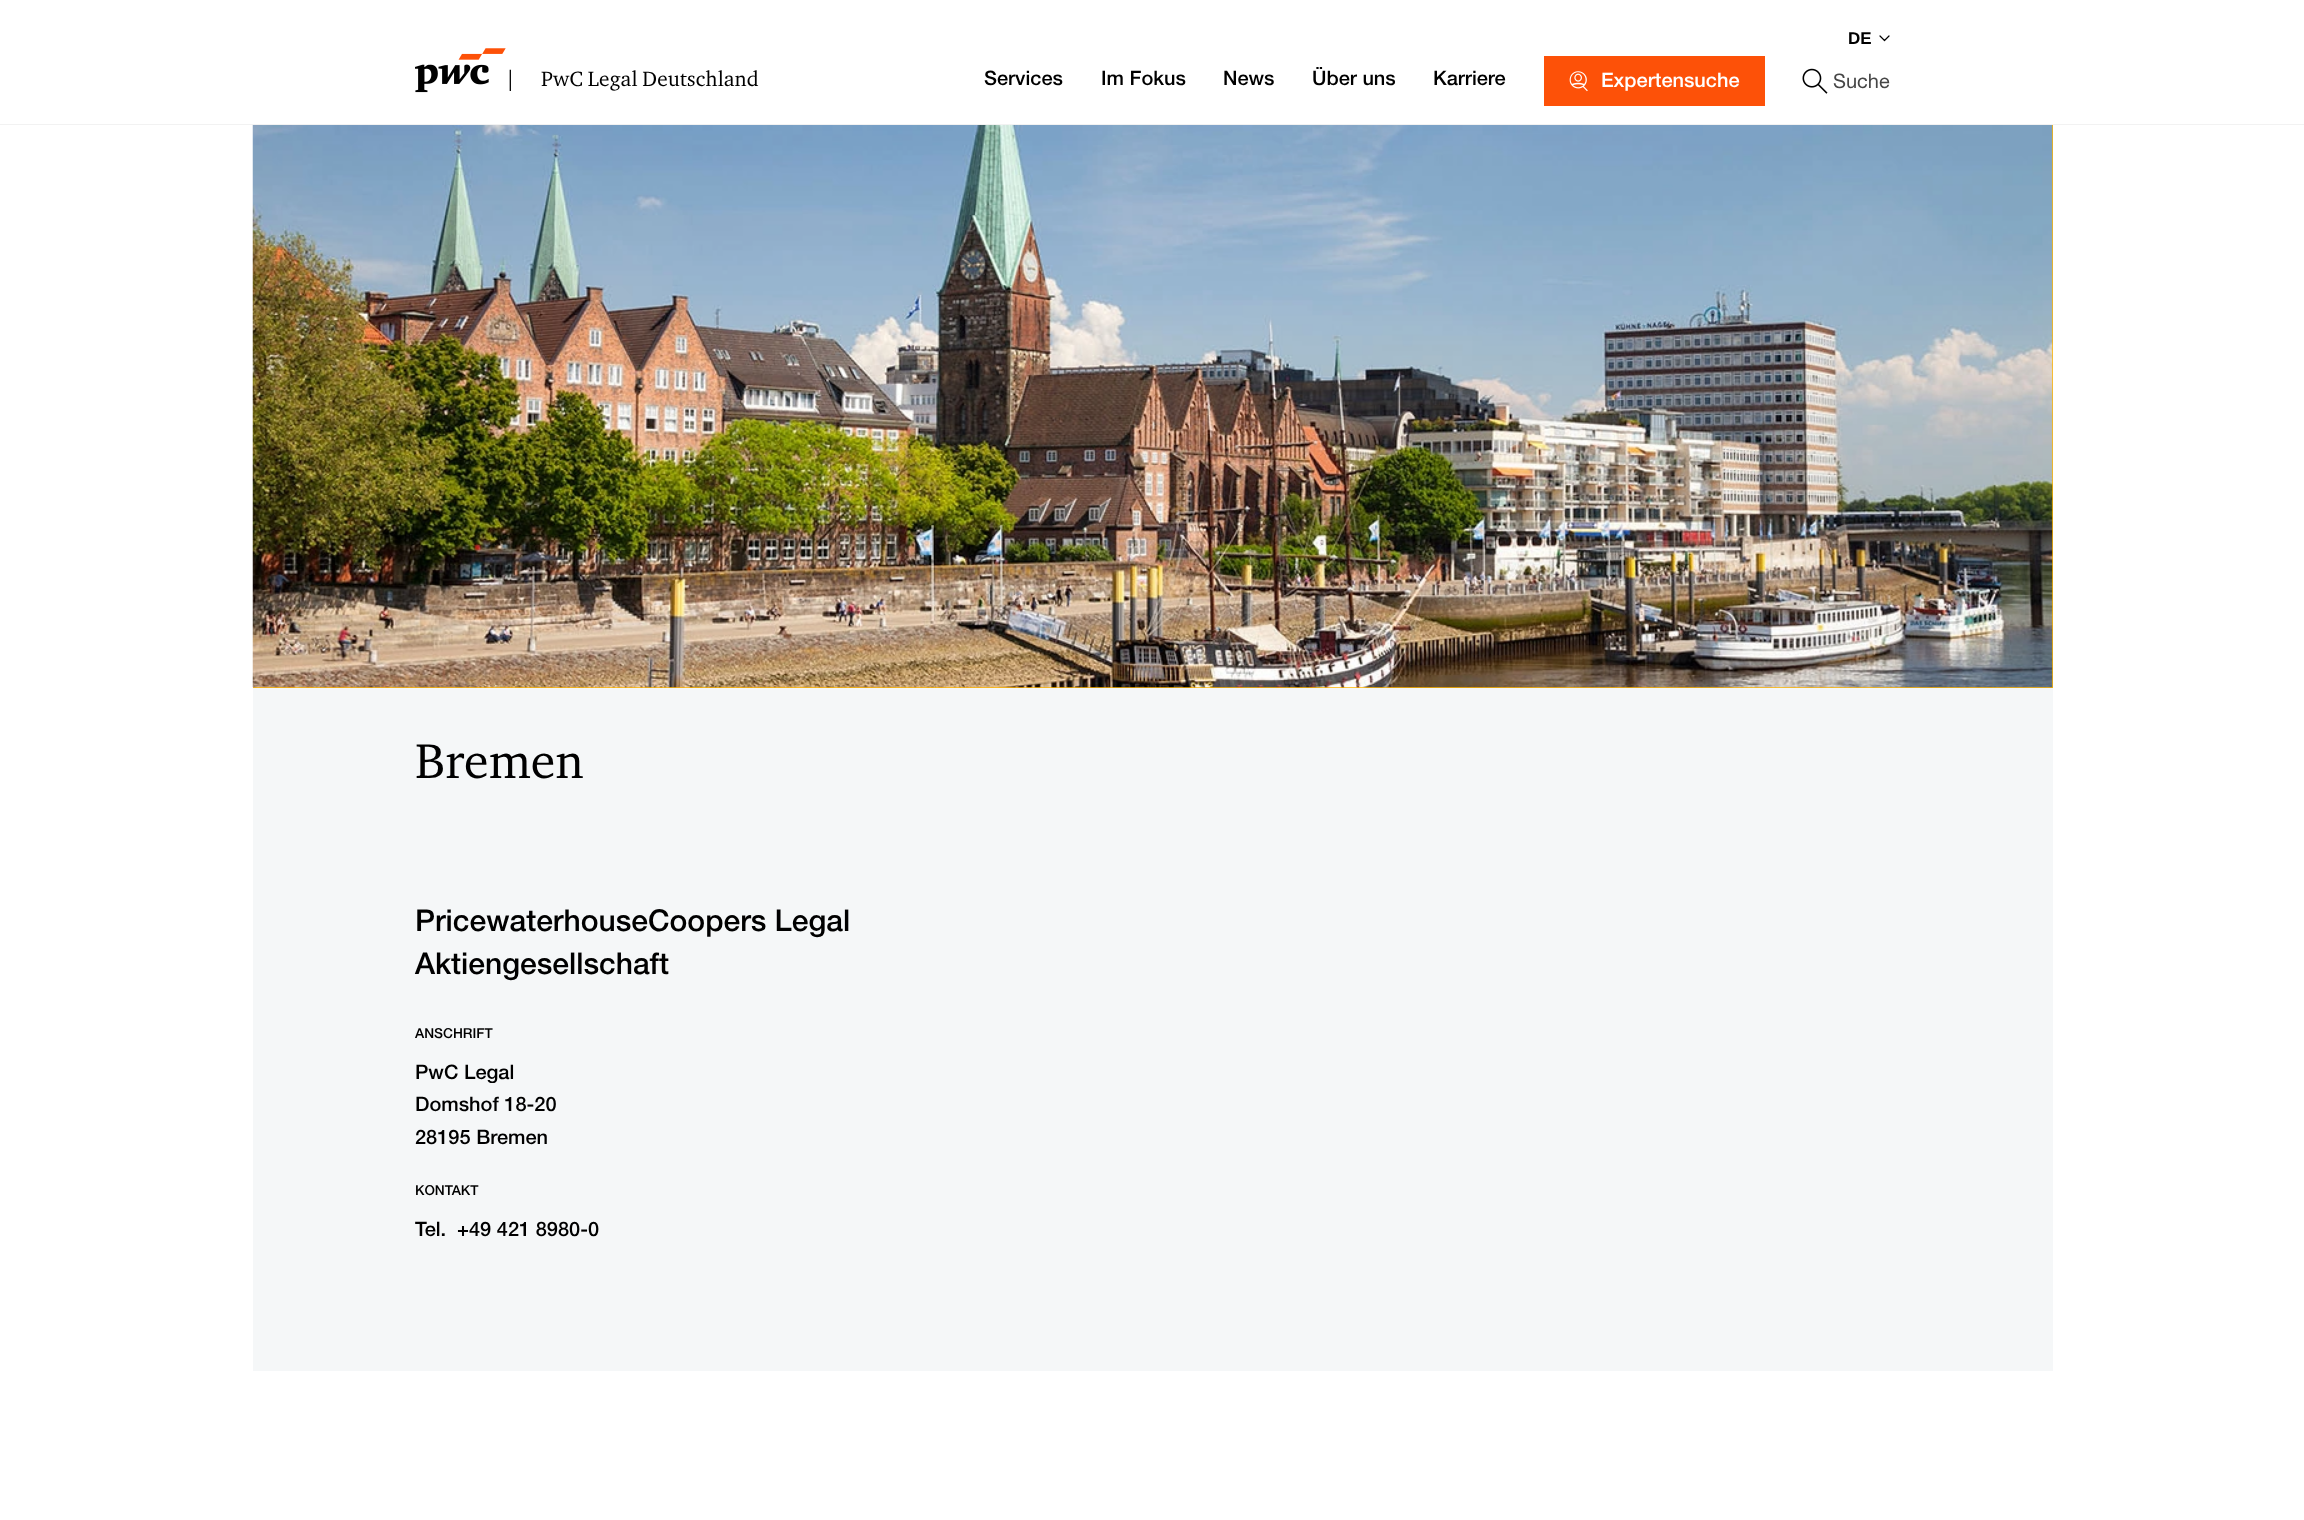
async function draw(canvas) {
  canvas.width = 2304;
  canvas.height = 1520;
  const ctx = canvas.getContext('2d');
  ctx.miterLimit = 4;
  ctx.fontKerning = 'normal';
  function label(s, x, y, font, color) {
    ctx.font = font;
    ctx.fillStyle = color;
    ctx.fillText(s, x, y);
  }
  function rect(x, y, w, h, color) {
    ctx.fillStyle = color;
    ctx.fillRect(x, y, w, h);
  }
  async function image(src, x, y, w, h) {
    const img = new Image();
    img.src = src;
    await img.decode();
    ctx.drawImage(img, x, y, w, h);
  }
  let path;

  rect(0, 0, 2304, 1520, '#fff');
  rect(0, 124, 2304, 1, '#f2f2f2');
  await image('assets/img1.png', 415, 48, 91, 45);
  ctx.letterSpacing = '0.1px';
  label('|', 505, 86, '21.25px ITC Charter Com', '#000');
  label('PwC Legal Deutschland', 541, 86, '21.25px ITC Charter Com', '#000');
  ctx.letterSpacing = '0px';
  label('Services', 984, 85, '500 20px Helvetica Neue', '#000');
  label('Im Fokus', 1101, 85, '500 20px Helvetica Neue', '#000');
  label('News', 1223, 85, '500 20px Helvetica Neue', '#000');
  label('Über uns', 1312, 85, '500 20px Helvetica Neue', '#000');
  label('Karriere', 1433, 85, '500 20px Helvetica Neue', '#000');
  label('DE', 1848, 44, 'bold 17px Liberation Sans', '#000');
  path = new Path2D('M1880 36L1884.5 40.5L1889 36');
  ctx.strokeStyle = '#000';
  ctx.lineWidth = 1.2;
  ctx.lineCap = 'round';
  ctx.lineJoin = 'round';
  ctx.stroke(path);
  rect(1544, 56, 221, 50, '#fd5108');
  await image('assets/img2.png', 1569, 71, 19, 21);
  label('Expertensuche', 1601, 87, '500 20px Helvetica Neue', '#fff');
  await image('assets/img3.png', 1802, 68, 26, 26);
  label('Suche', 1833, 88, '20px Helvetica Neue', '#464646');
  rect(253, 125, 1800, 563, '#ffb600');
  await image('assets/img4.png', 252, 125, 1801, 563);
  rect(253, 688, 1800, 683, '#f5f7f8');
  label('Bremen', 415, 778, '50px ITC Charter Com', '#000');
  label('PricewaterhouseCoopers Legal', 415, 931, '500 30px Helvetica Neue', '#000');
  label('Aktiengesellschaft', 415, 974, '500 30px Helvetica Neue', '#000');
  label('ANSCHRIFT', 415, 1038, '500 13.75px Helvetica Neue', '#000');
  label('PwC Legal', 415, 1079, '500 20px Helvetica Neue', '#000');
  label('Domshof 18-20', 415, 1111, '500 20px Helvetica Neue', '#000');
  label('28195 Bremen', 415, 1144, '500 20px Helvetica Neue', '#000');
  label('KONTAKT', 415, 1195, '500 13.75px Helvetica Neue', '#000');
  label('Tel.', 415, 1236, '500 20px Helvetica Neue', '#000');
  label('+49 421 8980-0', 457, 1236, '500 20px Helvetica Neue', '#000');
}

draw(document.querySelector('canvas'));
